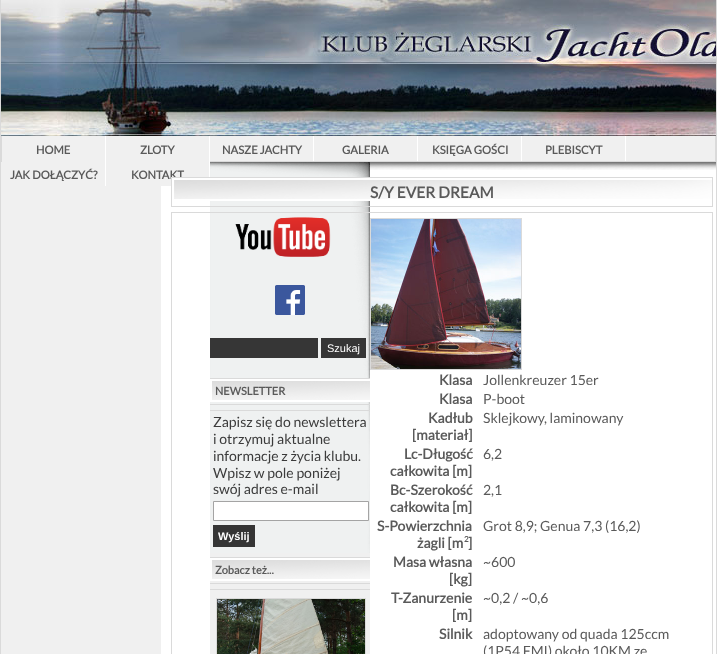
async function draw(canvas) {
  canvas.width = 717;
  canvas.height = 654;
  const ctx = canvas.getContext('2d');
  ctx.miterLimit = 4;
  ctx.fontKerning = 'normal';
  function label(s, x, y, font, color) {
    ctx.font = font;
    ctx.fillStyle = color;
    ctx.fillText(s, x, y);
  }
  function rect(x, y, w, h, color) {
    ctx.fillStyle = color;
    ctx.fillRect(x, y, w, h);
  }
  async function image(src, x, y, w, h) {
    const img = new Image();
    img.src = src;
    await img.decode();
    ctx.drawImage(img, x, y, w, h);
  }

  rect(0, 0, 717, 654, '#f0f0f0');
  rect(716, 0, 1, 654, '#dadada');
  rect(0, 0, 1, 654, '#dadada');
  await image('assets/img1.png', 1, 0, 715, 136);
  rect(715, 136, 1, 26, '#dadada');
  rect(1, 136, 1, 26, '#dadada');
  rect(210, 161, 505, 1, '#dadada');
  rect(105, 136, 1, 50, '#fff');
  label('HOME', 36, 154, 'bold 11.25px Lato', '#5a5a5a');
  rect(161, 170, 555, 484, '#fff');
  rect(209, 136, 1, 41, '#fff');
  label('ZLOTY', 140, 154, 'bold 11.25px Lato', '#5a5a5a');
  rect(313, 136, 1, 25, '#fff');
  label('NASZE JACHTY', 222, 154, 'bold 11.25px Lato', '#5a5a5a');
  rect(417, 136, 1, 25, '#fff');
  label('GALERIA', 342, 154, 'bold 11.25px Lato', '#5a5a5a');
  rect(521, 136, 1, 25, '#fff');
  label('KSIĘGA GOŚCI', 432, 154, 'bold 11.25px Lato', '#5a5a5a');
  rect(625, 136, 1, 25, '#fff');
  label('PLEBISCYT', 545, 154, 'bold 11.25px Lato', '#5a5a5a');
  label('JAK DOŁĄCZYĆ?', 10, 179, 'bold 11.25px Lato', '#5a5a5a');
  rect(161, 170, 48, 16, '#f0f0f0');
  label('KONTAKT', 131, 179, 'bold 11.25px Lato', '#5a5a5a');
  rect(210, 553, 160, 101, '#f0f0f0');
  await image('assets/img2.png', 210, 162, 160, 391);
  await image('assets/img3.png', 235, 217, 96, 40);
  await image('assets/img4.png', 275, 285, 30, 30);
  rect(210, 338, 108, 20, '#363636');
  rect(321, 338, 45, 20, '#363636');
  label('Szukaj', 327, 352, '11px Liberation Sans', '#fff');
  await image('assets/img5.png', 210, 379, 160, 23);
  rect(210, 378, 160, 1, '#dadada');
  rect(210, 404, 160, 1, '#dadada');
  label('NEWSLETTER', 215, 395, 'bold 11px Lato', '#5a5a5a');
  rect(210, 410, 160, 1, '#dadada');
  label('Zapisz się do newslettera', 213, 427, '14px Lato', '#3b3b3b');
  label('i otrzymuj aktualne', 213, 444, '14px Lato', '#3b3b3b');
  label('informacje z życia klubu.', 213, 461, '14px Lato', '#3b3b3b');
  label('Wpisz w pole poniżej', 213, 478, '14px Lato', '#3b3b3b');
  label('swój adres e-mail', 213, 494, '14px Lato', '#3b3b3b');
  ctx.fillStyle = '#fff';
  ctx.beginPath();
  ctx.rect(213.5, 501.5, 155, 19);
  ctx.fill();
  ctx.strokeStyle = '#a4a4a4';
  ctx.stroke();
  rect(213, 525, 42, 22, '#353535');
  label('Wyślij', 218, 540, 'bold 11px Liberation Sans', '#fff');
  await image('assets/img5.png', 210, 558, 160, 23);
  rect(210, 557, 160, 1, '#dadada');
  rect(210, 583, 160, 1, '#dadada');
  label('Zobacz też...', 215, 574, 'bold 11px Lato', '#5a5a5a');
  rect(210, 589, 160, 1, '#dadada');
  ctx.strokeStyle = '#dadada';
  ctx.strokeRect(216.5, 598.5, 149, 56);
  await image('assets/img6.png', 217, 599, 148, 55);
  await image('assets/img7.png', 370, 162, 346, 8);
  await image('assets/img8.png', 172, 178, 540, 23);
  ctx.strokeRect(171.5, 177.5, 541, 29);
  label('S/Y EVER DREAM', 370, 198, 'bold 15.5px Lato', '#5a5a5a');
  ctx.strokeRect(171.5, 212.5, 541, 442);
  ctx.strokeRect(370.5, 218.5, 151, 151);
  await image('assets/img9.png', 371, 219, 150, 150);
  label('Klasa', 439, 385, 'bold 14px Lato', '#5a5a5a');
  label('Jollenkreuzer 15er', 483, 385, '14px Lato', '#5a5a5a');
  label('Klasa', 439, 404, 'bold 14px Lato', '#5a5a5a');
  label('P-boot', 483, 404, '14px Lato', '#5a5a5a');
  label('Kadłub', 428, 423, 'bold 14px Lato', '#5a5a5a');
  label('[materiał]', 412, 440, 'bold 14px Lato', '#5a5a5a');
  label('Sklejkowy, laminowany', 483, 423, '14px Lato', '#5a5a5a');
  label('Lc-Długość', 404, 459, 'bold 14px Lato', '#5a5a5a');
  label('całkowita [m]', 390, 476, 'bold 14px Lato', '#5a5a5a');
  label('6,2', 483, 459, '14px Lato', '#5a5a5a');
  label('Bc-Szerokość', 390, 495, 'bold 14px Lato', '#5a5a5a');
  label('całkowita [m]', 390, 512, 'bold 14px Lato', '#5a5a5a');
  label('2,1', 483, 495, '14px Lato', '#5a5a5a');
  label('S-Powierzchnia', 377, 531, 'bold 14px Lato', '#5a5a5a');
  label('żagli [m', 417, 548, 'bold 14px Lato', '#5a5a5a');
  label('2', 464, 542, 'bold 8px Lato', '#5a5a5a');
  label(']', 468, 548, 'bold 14px Lato', '#5a5a5a');
  label('Grot 8,9; Genua 7,3 (16,2)', 483, 531, '14px Lato', '#5a5a5a');
  label('Masa własna', 393, 567, 'bold 14px Lato', '#5a5a5a');
  label('[kg]', 449, 584, 'bold 14px Lato', '#5a5a5a');
  label('~600', 483, 567, '14px Lato', '#5a5a5a');
  label('T-Zanurzenie', 391, 603, 'bold 14px Lato', '#5a5a5a');
  label('[m]', 452, 620, 'bold 14px Lato', '#5a5a5a');
  label('~0,2 / ~0,6', 483, 603, '14px Lato', '#5a5a5a');
  label('Silnik', 439, 639, 'bold 14px Lato', '#5a5a5a');
  label('adoptowany od quada 125ccm', 483, 639, '14px Lato', '#5a5a5a');
  label('(1P54 FMI) około 10KM ze', 483, 656, '14px Lato', '#5a5a5a');
}

draw(document.querySelector('canvas'));
